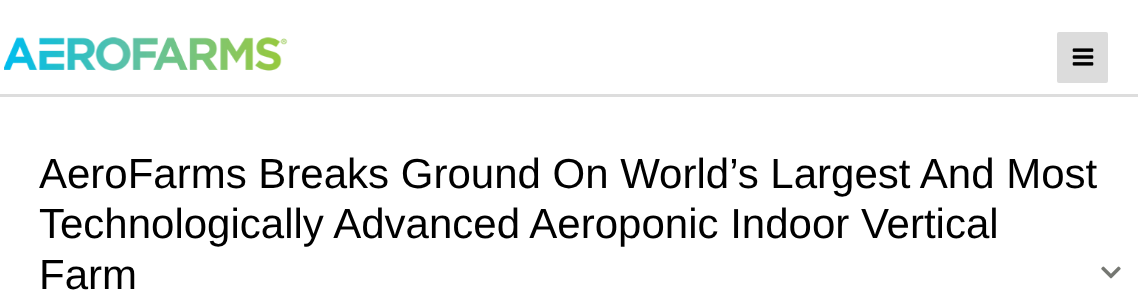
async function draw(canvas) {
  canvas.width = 1138;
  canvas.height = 303;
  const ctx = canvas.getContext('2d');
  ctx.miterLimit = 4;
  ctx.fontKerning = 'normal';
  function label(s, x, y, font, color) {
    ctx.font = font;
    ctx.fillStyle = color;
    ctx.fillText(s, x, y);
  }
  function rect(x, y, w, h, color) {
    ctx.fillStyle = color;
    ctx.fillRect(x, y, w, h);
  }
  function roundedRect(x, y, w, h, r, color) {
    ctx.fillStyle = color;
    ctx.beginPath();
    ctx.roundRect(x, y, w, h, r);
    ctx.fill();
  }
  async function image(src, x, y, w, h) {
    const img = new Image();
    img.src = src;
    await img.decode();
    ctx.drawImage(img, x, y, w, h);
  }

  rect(0, 0, 1138, 303, '#fff');
  rect(0, 94, 1138, 3, '#ddd');
  await image('assets/img1.png', 4, 37, 284, 34);
  roundedRect(1057, 32, 51, 51, 2, '#dcdcdc');
  await image('assets/img2.png', 1072, 48, 22, 18);
  label('AeroFarms Breaks Ground On World’s Largest And Most', 39, 188, '42px Liberation Sans', '#000');
  label('Technologically Advanced Aeroponic Indoor Vertical', 39, 238, '42px Liberation Sans', '#000');
  label('Farm', 39, 289, '42px Liberation Sans', '#000');
  await image('assets/img3.png', 1101, 266, 20, 13);
}

draw(document.querySelector('canvas'));
